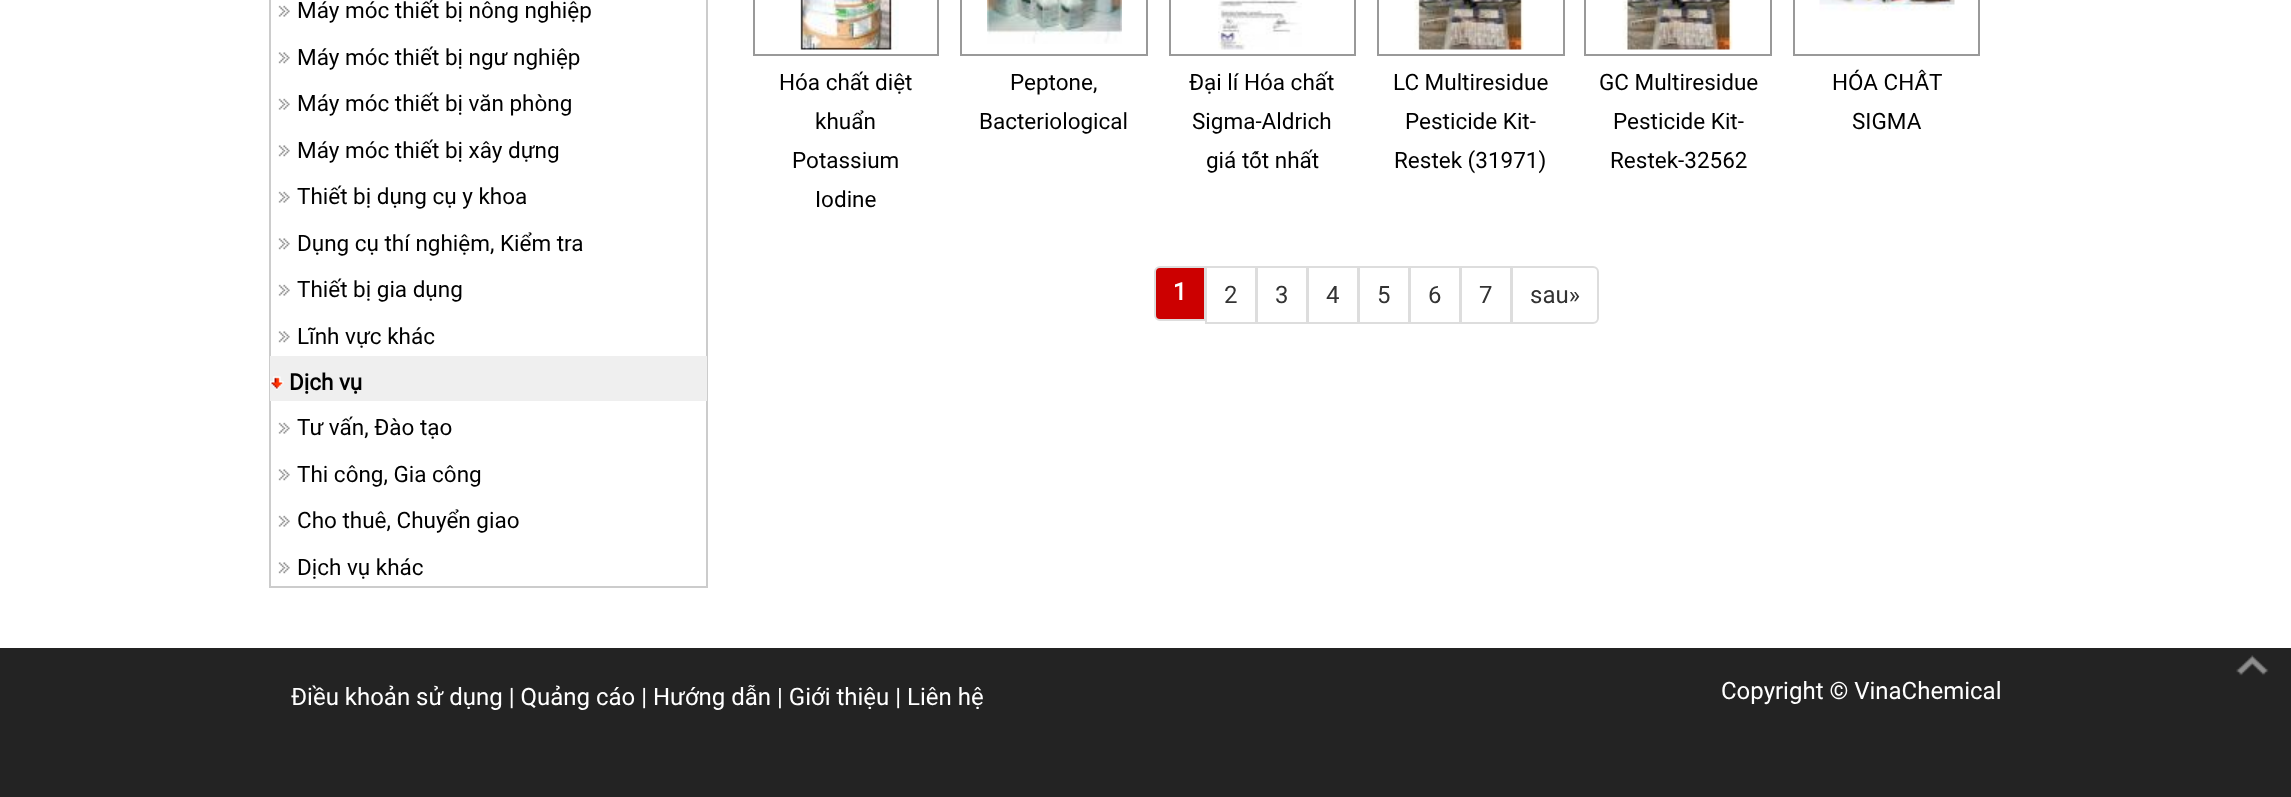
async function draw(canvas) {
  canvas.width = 2291;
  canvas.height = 797;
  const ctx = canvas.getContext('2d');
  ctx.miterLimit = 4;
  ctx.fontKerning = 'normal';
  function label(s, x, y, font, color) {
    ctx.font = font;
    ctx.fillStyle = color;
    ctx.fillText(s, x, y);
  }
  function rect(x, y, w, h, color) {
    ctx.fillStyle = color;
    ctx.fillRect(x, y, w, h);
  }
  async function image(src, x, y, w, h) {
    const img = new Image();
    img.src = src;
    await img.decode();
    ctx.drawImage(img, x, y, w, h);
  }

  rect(0, 0, 2291, 797, '#fff');
  ctx.strokeStyle = '#ccc';
  ctx.lineWidth = 2;
  ctx.strokeRect(270, -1, 437, 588);
  await image('assets/img1.png', 278, 5, 12, 12);
  label('Máy móc thiết bị nông nghiệp', 297, 18, '22.5px Roboto', '#000');
  await image('assets/img2.png', 278, 52, 12, 12);
  label('Máy móc thiết bị ngư nghiệp', 297, 65, '22.5px Roboto', '#000');
  await image('assets/img1.png', 278, 98, 12, 12);
  label('Máy móc thiết bị văn phòng', 297, 111, '22.5px Roboto', '#000');
  await image('assets/img2.png', 278, 145, 12, 12);
  label('Máy móc thiết bị xây dựng', 297, 158, '22.5px Roboto', '#000');
  await image('assets/img1.png', 278, 191, 12, 12);
  label('Thiết bị dụng cụ y khoa', 297, 204, '22.5px Roboto', '#000');
  await image('assets/img2.png', 278, 238, 12, 12);
  label('Dụng cụ thí nghiệm, Kiểm tra', 297, 251, '22.5px Roboto', '#000');
  await image('assets/img1.png', 278, 284, 12, 12);
  label('Thiết bị gia dụng', 297, 297, '22.5px Roboto', '#000');
  await image('assets/img2.png', 278, 331, 12, 12);
  label('Lĩnh vực khác', 297, 344, '22.5px Roboto', '#000');
  rect(270, 356, 437, 45, '#efefef');
  await image('assets/img3.png', 270, 376, 14, 14);
  label('Dịch vụ', 289, 390, 'bold 22.5px Roboto', '#000');
  await image('assets/img1.png', 278, 422, 12, 12);
  label('Tư vấn, Đào tạo', 297, 435, '22.5px Roboto', '#000');
  await image('assets/img2.png', 278, 469, 12, 12);
  label('Thi công, Gia công', 297, 482, '22.5px Roboto', '#000');
  await image('assets/img1.png', 278, 515, 12, 12);
  label('Cho thuê, Chuyển giao', 297, 528, '22.5px Roboto', '#000');
  await image('assets/img2.png', 278, 562, 12, 12);
  label('Dịch vụ khác', 297, 575, '22.5px Roboto', '#000');
  ctx.strokeStyle = '#999';
  ctx.strokeRect(754, -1, 184, 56);
  await image('assets/img4.png', 800, 0, 99, 50);
  label('Hóa chất diệt', 779, 90, '22.5px Roboto', '#000');
  label('khuẩn', 815, 129, '22.5px Roboto', '#000');
  label('Potassium', 792, 168, '22.5px Roboto', '#000');
  label('Iodine', 815, 207, '22.5px Roboto', '#000');
  ctx.strokeRect(961, -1, 186, 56);
  await image('assets/img5.png', 987, 0, 135, 44);
  label('Peptone,', 1010, 90, '22.5px Roboto', '#000');
  label('Bacteriological', 979, 129, '22.5px Roboto', '#000');
  ctx.strokeRect(1170, -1, 185, 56);
  await image('assets/img6.png', 1218, 0, 84, 50);
  label('Đại lí Hóa chất', 1189, 90, '22.5px Roboto', '#000');
  label('Sigma-Aldrich', 1192, 129, '22.5px Roboto', '#000');
  label('giá tốt nhất', 1206, 168, '22.5px Roboto', '#000');
  ctx.strokeRect(1378, -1, 186, 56);
  await image('assets/img7.png', 1414, 0, 110, 50);
  label('LC Multiresidue', 1393, 90, '22.5px Roboto', '#000');
  label('Pesticide Kit-', 1405, 129, '22.5px Roboto', '#000');
  label('Restek (31971)', 1394, 168, '22.5px Roboto', '#000');
  ctx.strokeRect(1585, -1, 186, 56);
  await image('assets/img8.png', 1622, 0, 111, 50);
  label('GC Multiresidue', 1599, 90, '22.5px Roboto', '#000');
  label('Pesticide Kit-', 1613, 129, '22.5px Roboto', '#000');
  label('Restek-32562', 1610, 168, '22.5px Roboto', '#000');
  ctx.strokeRect(1794, -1, 185, 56);
  await image('assets/img9.png', 1819, 0, 136, 12);
  label('HÓA CHẤT', 1832, 90, '22.5px Roboto', '#000');
  label('SIGMA', 1852, 129, '22.5px Roboto', '#000');
  ctx.fillStyle = '#c00';
  ctx.beginPath();
  ctx.roundRect(1155, 267, 50, 53, [5, 0, 0, 5]);
  ctx.fill();
  ctx.strokeStyle = '#ddd';
  ctx.stroke();
  label('1', 1173, 300, 'bold 24px Roboto', '#fff');
  ctx.strokeRect(1206, 267, 50, 56);
  label('2', 1224, 303, '24px Roboto', '#333');
  ctx.strokeRect(1257, 267, 50, 56);
  label('3', 1275, 303, '24px Roboto', '#333');
  ctx.strokeRect(1308, 267, 50, 56);
  label('4', 1326, 303, '24px Roboto', '#333');
  ctx.strokeRect(1359, 267, 50, 56);
  label('5', 1377, 303, '24px Roboto', '#333');
  ctx.strokeRect(1410, 267, 50, 56);
  label('6', 1428, 303, '24px Roboto', '#333');
  ctx.strokeRect(1461, 267, 50, 56);
  label('7', 1479, 303, '24px Roboto', '#333');
  ctx.fillStyle = '#fff';
  ctx.beginPath();
  ctx.roundRect(1512, 267, 86, 56, [0, 5, 5, 0]);
  ctx.fill();
  ctx.stroke();
  label('sau»', 1530, 303, '24px Roboto', '#333');
  rect(0, 648, 2291, 149, '#232323');
  await image('assets/img10.png', 2236, 655, 33, 21);
  label('Điều khoản sử dụng | Quảng cáo | Hướng dẫn | Giới thiệu | Liên hệ', 291, 705, '24px Roboto', '#fff');
  label('Copyright © VinaChemical', 1721, 699, '24px Roboto', '#fff');
}

draw(document.querySelector('canvas'));
